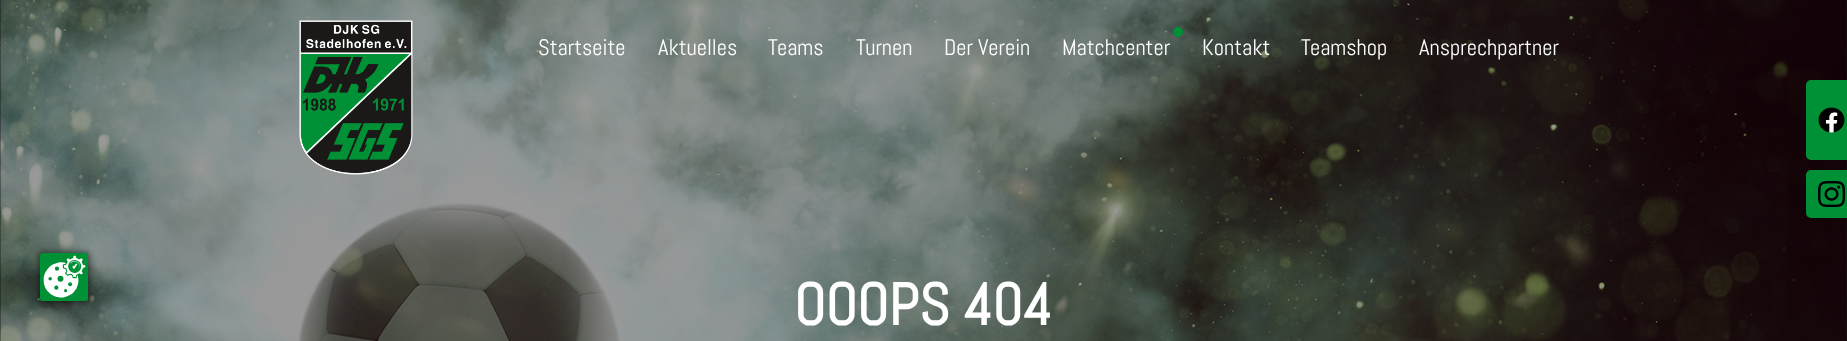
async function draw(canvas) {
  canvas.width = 1847;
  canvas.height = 341;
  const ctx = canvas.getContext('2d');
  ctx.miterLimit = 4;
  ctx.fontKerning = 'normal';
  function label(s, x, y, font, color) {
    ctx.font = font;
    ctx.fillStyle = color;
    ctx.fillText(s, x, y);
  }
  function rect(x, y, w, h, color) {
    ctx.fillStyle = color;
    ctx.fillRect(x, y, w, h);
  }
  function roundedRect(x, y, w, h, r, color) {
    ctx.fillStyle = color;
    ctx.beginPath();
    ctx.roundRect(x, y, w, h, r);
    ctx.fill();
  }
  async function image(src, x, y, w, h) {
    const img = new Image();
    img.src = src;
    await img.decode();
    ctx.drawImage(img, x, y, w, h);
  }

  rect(0, 0, 1847, 341, '#fff');
  await image('assets/img1.png', 0, 0, 1847, 341);
  await image('assets/img6.png', 0, 0, 1847, 341);
  await image('assets/img2.png', 299, 20, 114, 155);
  label('Startseite', 538, 55, '22.5px Abel', '#fff');
  label('Aktuelles', 658, 55, '22.5px Abel', '#fff');
  label('Teams', 768, 55, '22.5px Abel', '#fff');
  label('Turnen', 856, 55, '22.5px Abel', '#fff');
  label('Der Verein', 944, 55, '22.5px Abel', '#fff');
  ctx.fillStyle = '#009035';
  ctx.beginPath();
  ctx.arc(1178, 32, 5, 0, 2 * Math.PI);
  ctx.fill();
  label('Matchcenter', 1062, 55, '22.5px Abel', '#fff');
  label('Kontakt', 1202, 55, '22.5px Abel', '#fff');
  label('Teamshop', 1301, 55, '22.5px Abel', '#fff');
  label('Ansprechpartner', 1419, 55, '22.5px Abel', '#fff');
  roundedRect(1806, 80, 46, 80, 5, '#009035');
  await image('assets/img3.png', 1818, 107, 27, 26);
  roundedRect(1806, 170, 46, 48, 5, '#009035');
  await image('assets/img4.png', 1818, 181, 27, 26);
  ctx.fillStyle = '#00000080';
  ctx.filter = 'blur(3px)';
  ctx.beginPath();
  ctx.rect(39, 252, 50, 50);
  ctx.fill();
  ctx.filter = 'none';
  await image('assets/img5.png', 40, 253, 48, 48);
  label('OOOPS 404', 794, 325, 'bold 59px Abel', '#fff');
}

draw(document.querySelector('canvas'));
